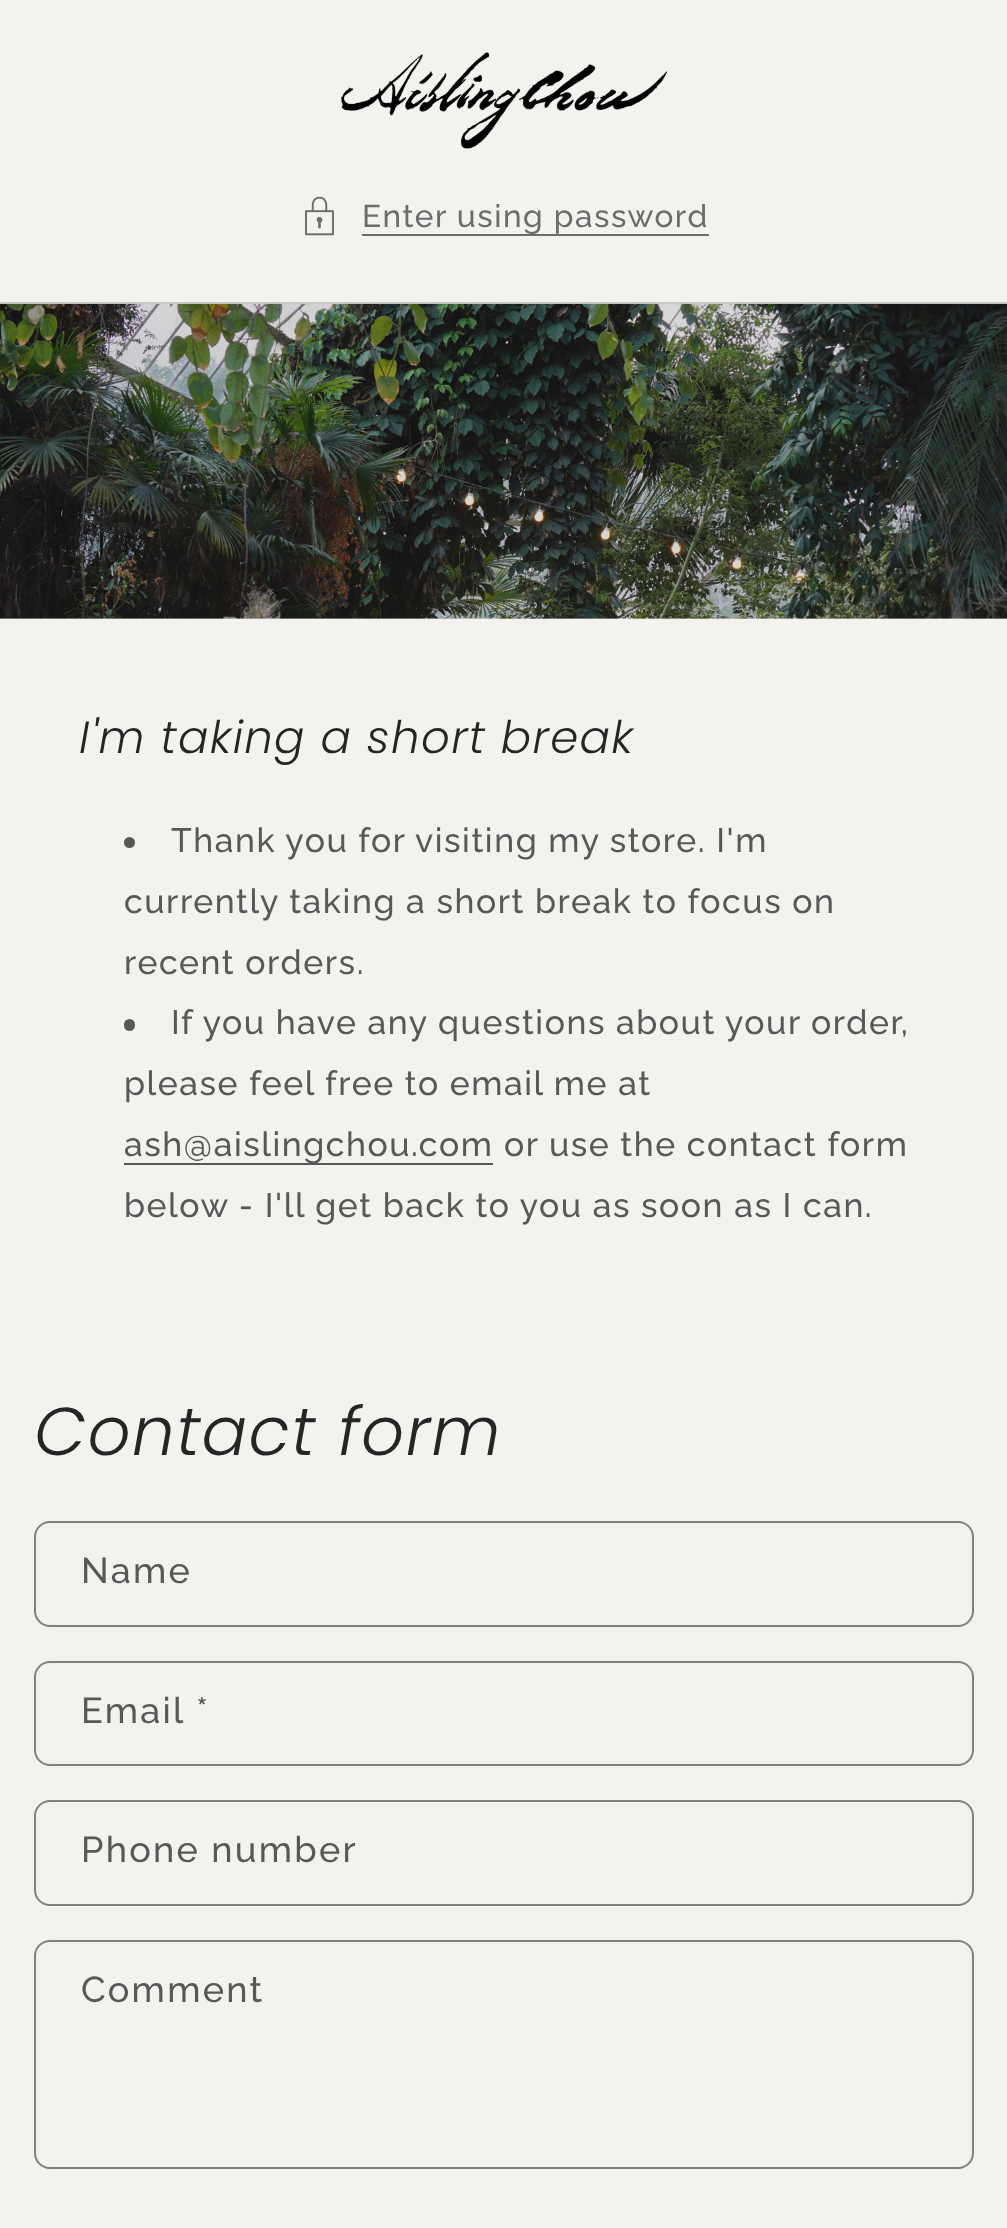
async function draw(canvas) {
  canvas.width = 1007;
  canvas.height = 2228;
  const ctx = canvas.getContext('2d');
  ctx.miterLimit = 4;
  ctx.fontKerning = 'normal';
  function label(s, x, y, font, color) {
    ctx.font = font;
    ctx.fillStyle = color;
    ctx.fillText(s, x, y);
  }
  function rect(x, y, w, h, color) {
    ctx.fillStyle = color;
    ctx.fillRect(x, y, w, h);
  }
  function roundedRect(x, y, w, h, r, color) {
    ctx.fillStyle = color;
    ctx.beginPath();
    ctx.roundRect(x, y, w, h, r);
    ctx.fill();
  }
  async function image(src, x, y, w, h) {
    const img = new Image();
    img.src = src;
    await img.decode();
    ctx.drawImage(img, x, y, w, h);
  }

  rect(0, 0, 1007, 2228, '#f4f2ef');
  await image('assets/img1.png', 341, 52, 327, 97);
  await image('assets/img2.png', 305, 196, 29, 40);
  ctx.letterSpacing = '1.55px';
  label('Enter using password', 362, 227, '500 31.5px Raleway', '#696d6c');
  rect(362, 234, 347, 2, '#696d6c');
  rect(0, 302, 1007, 2, '#cbc9c7');
  rect(0, 618, 1007, 1, '#dfdcdc');
  await image('assets/img3.png', 0, 303, 1007, 316);
  ctx.letterSpacing = '1.35px';
  label('I\'m taking a short break', 79, 753, 'italic 300 45px Poppins', '#252525');
  ctx.fillStyle = '#595858';
  ctx.beginPath();
  ctx.arc(129.5, 842.5, 5.5, 0, 2 * Math.PI);
  ctx.fill();
  ctx.letterSpacing = '1.55px';
  label('Thank you for visiting my store. I\'m', 171, 852, '500 33.75px Raleway', '#595858');
  label('currently taking a short break to focus on', 124, 913, '500 33.75px Raleway', '#595858');
  label('recent orders.', 124, 974, '500 33.75px Raleway', '#595858');
  roundedRect(124, 1019, 11, 12, 5.5, '#595858');
  label('If you have any questions about your order,', 171, 1034, '500 33.75px Raleway', '#595858');
  label('please feel free to email me at', 124, 1095, '500 33.75px Raleway', '#595858');
  rect(124, 1163, 369, 2, '#595858');
  label('ash@aislingchou.com', 124, 1156, '500 33.75px Raleway', '#595858');
  label('or use the contact form', 504, 1156, '500 33.75px Raleway', '#595858');
  label('below - I\'ll get back to you as soon as I can.', 124, 1217, '500 33.75px Raleway', '#595858');
  ctx.letterSpacing = '1.35px';
  label('Contact form', 34, 1455, 'italic 300 67.5px Poppins', '#252525');
  ctx.beginPath();
  ctx.roundRect(35, 1522, 938, 104, 15);
  ctx.strokeStyle = '#828180';
  ctx.lineWidth = 2;
  ctx.stroke();
  ctx.letterSpacing = '2.25px';
  label('Name', 81, 1583, '500 36px Raleway', '#595858');
  ctx.beginPath();
  ctx.roundRect(35, 1662, 938, 103, 15);
  ctx.stroke();
  label('Email *', 81, 1723, '500 36px Raleway', '#595858');
  ctx.beginPath();
  ctx.roundRect(35, 1801, 938, 104, 15);
  ctx.stroke();
  label('Phone number', 81, 1862, '500 36px Raleway', '#595858');
  ctx.beginPath();
  ctx.roundRect(35, 1941, 938, 227, 15);
  ctx.stroke();
  label('Comment', 81, 2002, '500 36px Raleway', '#595858');
}

draw(document.querySelector('canvas'));
